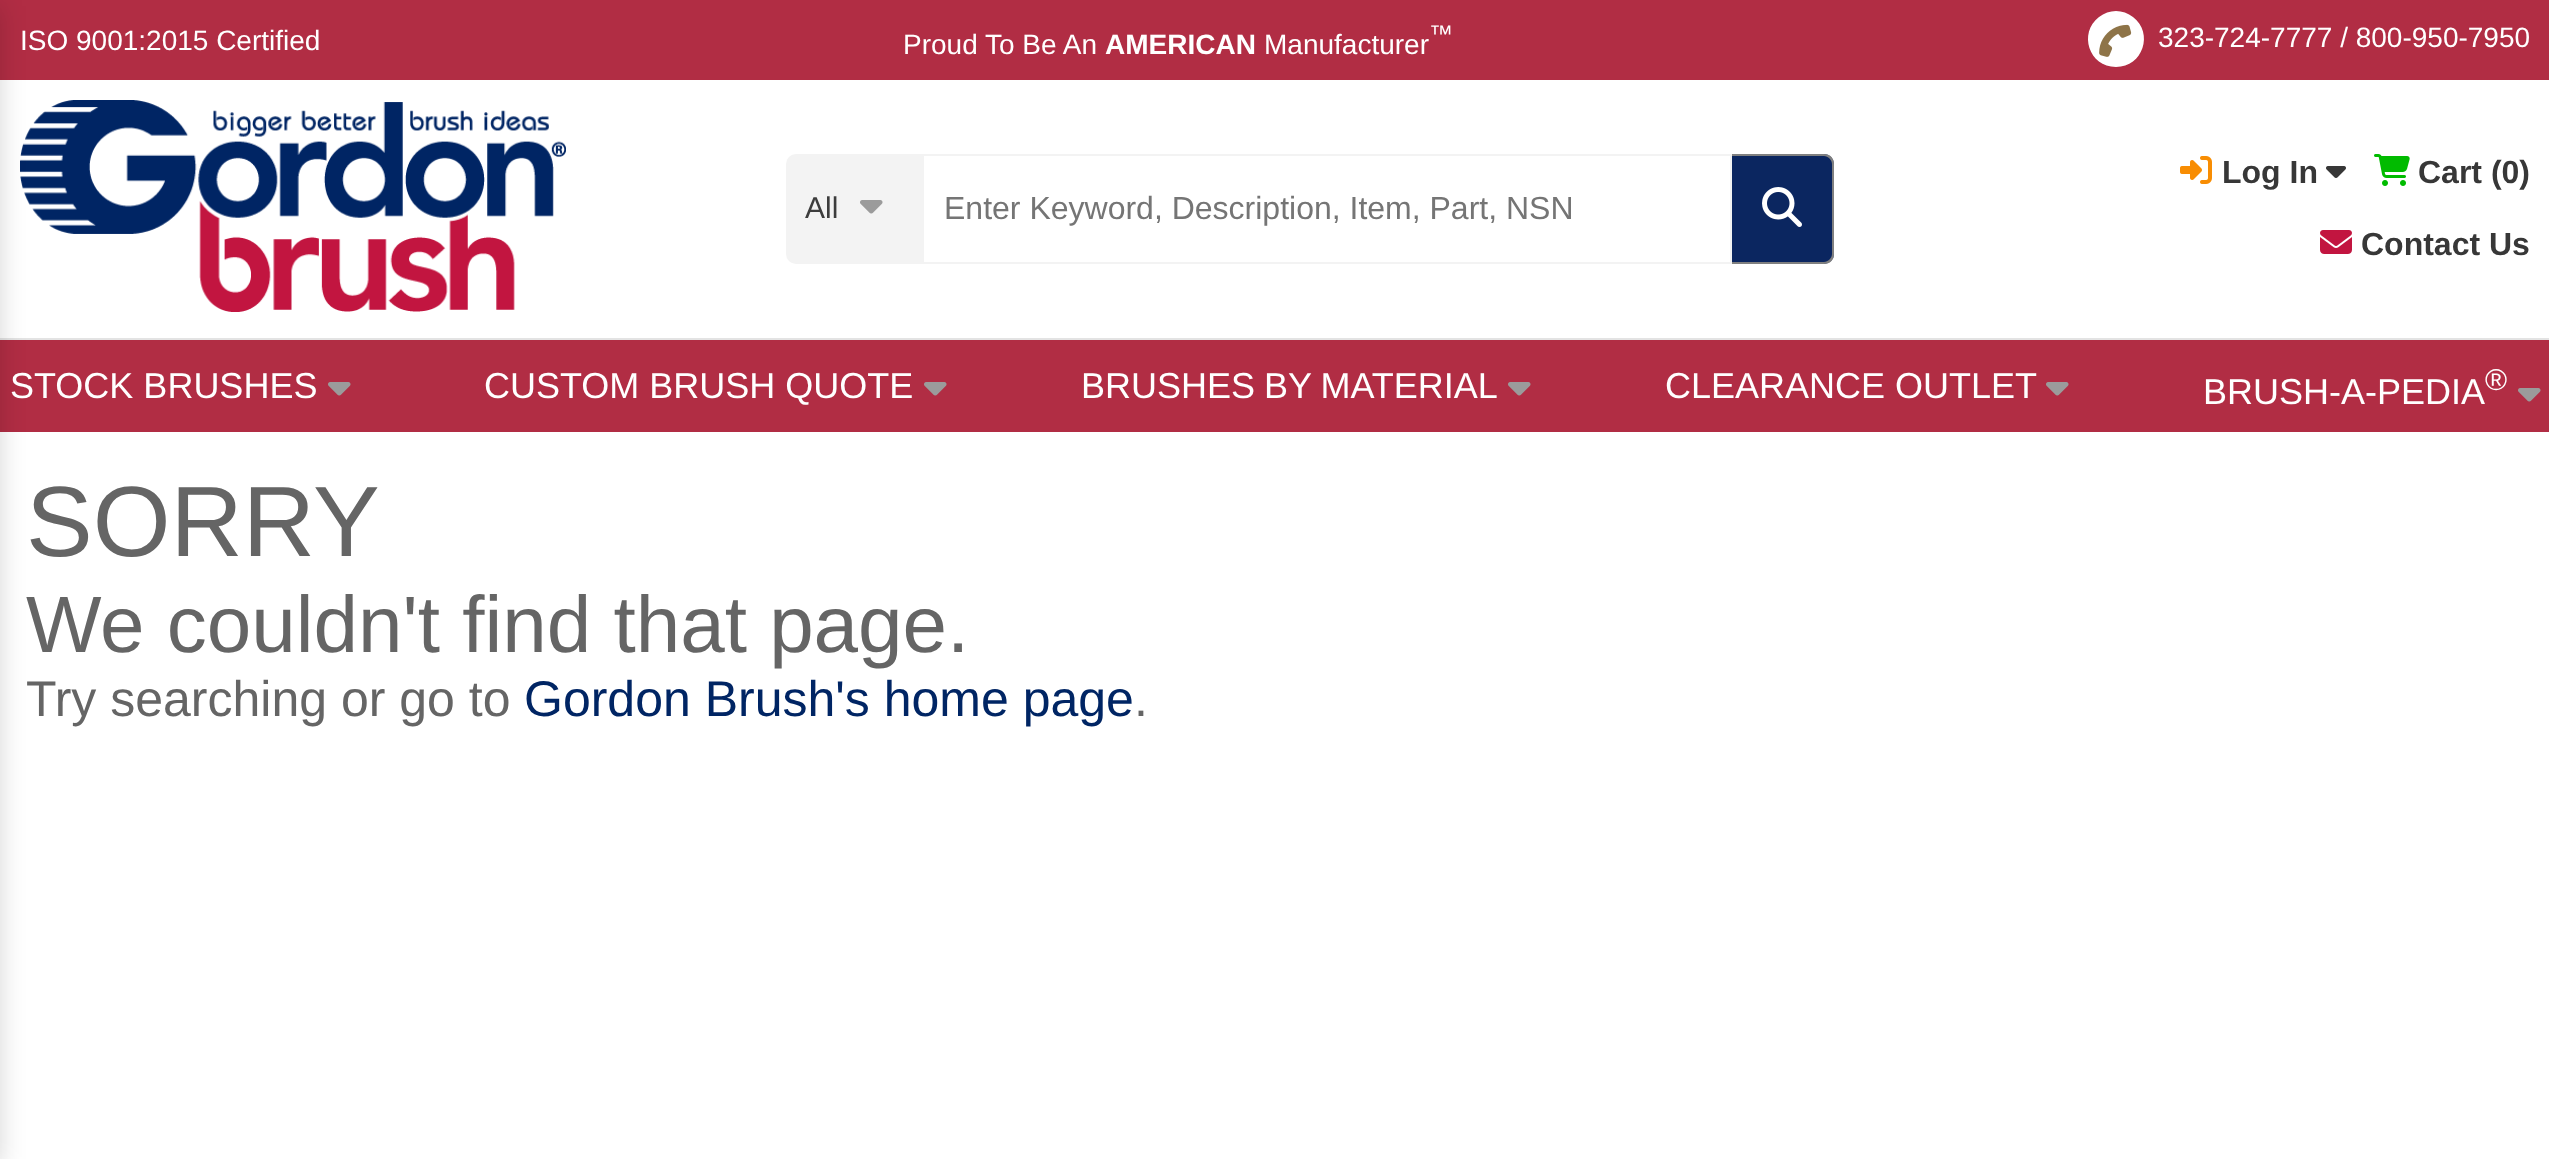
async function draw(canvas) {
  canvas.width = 2549;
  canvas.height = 1159;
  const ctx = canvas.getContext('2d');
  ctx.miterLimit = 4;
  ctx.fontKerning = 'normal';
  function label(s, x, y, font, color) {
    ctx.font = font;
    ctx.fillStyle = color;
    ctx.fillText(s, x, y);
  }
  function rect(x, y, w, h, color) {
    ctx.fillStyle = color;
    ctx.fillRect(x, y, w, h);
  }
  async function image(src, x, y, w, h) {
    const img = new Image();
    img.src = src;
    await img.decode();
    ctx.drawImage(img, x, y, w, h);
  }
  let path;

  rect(0, 0, 2549, 1159, '#fff');
  rect(0, 0, 2549, 80, '#b12d44');
  await image('assets/img2.png', 20, 100, 546, 212);
  rect(0, 338, 2549, 2, '#e3e3e3');
  rect(0, 340, 2549, 92, '#b12d44');
  ctx.fillStyle = '#00000029';
  ctx.filter = 'blur(13px)';
  ctx.beginPath();
  ctx.rect(-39, 6, 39, 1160);
  ctx.fill();
  ctx.filter = 'none';
  label('ISO 9001:2015 Certified', 20, 50, '28px Liberation Sans', '#fff');
  label('™', 1429, 42, '24px Liberation Sans', '#fff');
  label('Proud To Be An', 903, 54, '28px Liberation Sans', '#fff');
  label('AMERICAN', 1105, 54, 'bold 28px Liberation Sans', '#fff');
  label('Manufacturer', 1264, 54, '28px Liberation Sans', '#fff');
  path = new Path2D('M2116 67C2143 67 2154 33 2133 17C2128 13 2122 11 2116 11C2110 11 2104 13 2099 17C2078 33 2089 67 2116 67Z');
  ctx.fill(path);
  await image('assets/img1.png', 2099, 24, 33, 33);
  label('323-724-7777 / 800-950-7950', 2158, 47, '28px Liberation Sans', '#fff');
  ctx.fillStyle = '#f3f3f3';
  ctx.beginPath();
  ctx.roundRect(786, 154, 136, 110, [10, 0, 0, 10]);
  ctx.fill();
  label('All', 805, 218, '30px Liberation Sans', '#3d3d3d');
  await image('assets/img3.png', 860, 200, 23, 14);
  ctx.strokeStyle = '#f3f3f3';
  ctx.lineWidth = 2;
  ctx.strokeRect(923, 155, 808, 108);
  label('Enter Keyword, Description, Item, Part, NSN', 944, 219, '32px Liberation Sans', '#757575');
  ctx.fillStyle = '#0b2660';
  ctx.beginPath();
  ctx.roundRect(1732, 154, 102, 110, [0, 10, 10, 0]);
  ctx.fill();
  ctx.fillStyle = '#808080';
  path = new Path2D('M1732 154H1824C1830 154 1834 158 1834 164V254C1834 260 1830 264 1824 264H1732ZM1732 156H1824C1828 156 1832 160 1832 164V254C1832 258 1828 262 1824 262H1732Z');
  ctx.fill(path, 'evenodd');
  await image('assets/img4.png', 1762, 187, 40, 40);
  await image('assets/img5.png', 2180, 156, 32, 28);
  label('Log In', 2222, 183, 'bold 32px Liberation Sans', '#373737');
  await image('assets/img6.png', 2326, 166, 20, 12);
  await image('assets/img7.png', 2374, 154, 36, 32);
  label('Cart (0)', 2418, 183, 'bold 32px Liberation Sans', '#373737');
  await image('assets/img8.png', 2320, 230, 32, 24);
  label('Contact Us', 2361, 255, 'bold 32px Liberation Sans', '#373737');
  label('STOCK BRUSHES', 10, 398, '36px Liberation Sans', '#fff');
  await image('assets/img9.png', 328, 382, 23, 14);
  label('CUSTOM BRUSH QUOTE', 484, 398, '36px Liberation Sans', '#fff');
  await image('assets/img9.png', 924, 382, 23, 14);
  ctx.wordSpacing = '-1px';
  label('BRUSHES BY MATERIAL', 1081, 398, '36px Liberation Sans', '#fff');
  await image('assets/img9.png', 1508, 382, 23, 14);
  ctx.wordSpacing = '0px';
  label('CLEARANCE OUTLET', 1665, 398, '36px Liberation Sans', '#fff');
  await image('assets/img9.png', 2046, 382, 23, 14);
  label('BRUSH-A-PEDIA', 2203, 404, '36px Liberation Sans', '#fff');
  label('®', 2485, 390, '30px Liberation Sans', '#fff');
  await image('assets/img9.png', 2518, 388, 23, 14);
  label('SORRY', 26, 556, '100px Liberation Sans', '#656565');
  label('We couldn\'t find that page.', 26, 652, '80px Liberation Sans', '#656565');
  label('Try searching or go to', 26, 716, '50px Liberation Sans', '#656565');
  label('Gordon Brush\'s home page', 524, 716, '50px Liberation Sans', '#002564');
  label('.', 1134, 716, '50px Liberation Sans', '#656565');
}

draw(document.querySelector('canvas'));
